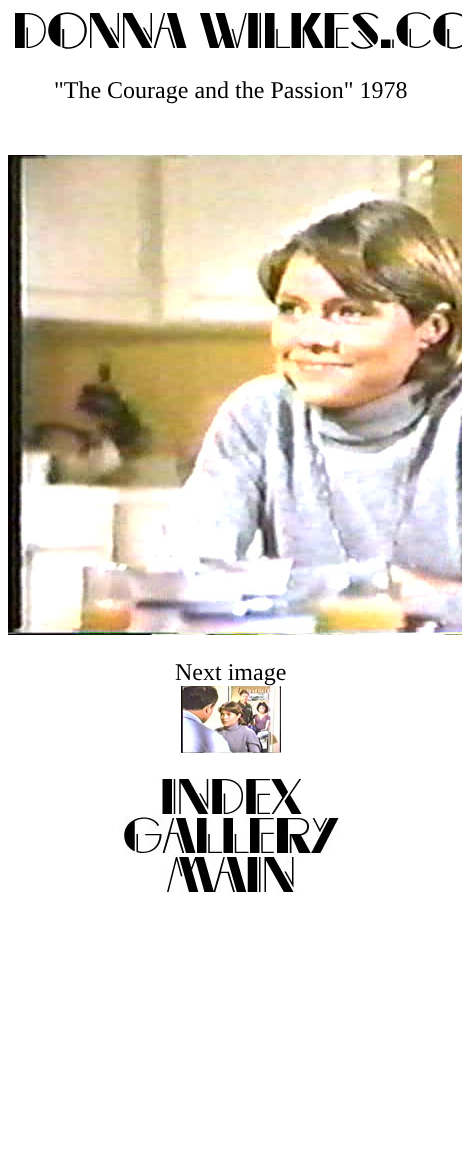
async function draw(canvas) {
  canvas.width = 462;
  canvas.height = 1151;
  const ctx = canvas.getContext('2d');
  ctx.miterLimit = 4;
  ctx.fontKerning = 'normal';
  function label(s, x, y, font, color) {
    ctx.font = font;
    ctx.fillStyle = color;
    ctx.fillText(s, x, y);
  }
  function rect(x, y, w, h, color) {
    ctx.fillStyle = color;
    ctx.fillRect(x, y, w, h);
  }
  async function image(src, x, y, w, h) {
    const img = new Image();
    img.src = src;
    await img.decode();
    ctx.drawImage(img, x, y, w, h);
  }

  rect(0, 0, 462, 1151, '#fff');
  await image('assets/img1.png', 8, 8, 454, 43);
  label('"The Courage and the Passion" 1978', 54, 98, '24px Liberation Serif', '#000');
  await image('assets/img2.png', 8, 155, 454, 480);
  label('Next image', 175, 680, '24px Liberation Serif', '#000');
  await image('assets/img3.png', 181, 686, 100, 67);
  await image('assets/img4.png', 159, 777, 143, 39);
  await image('assets/img5.png', 119, 816, 222, 39);
  await image('assets/img6.png', 165, 855, 133, 39);
}

draw(document.querySelector('canvas'));
